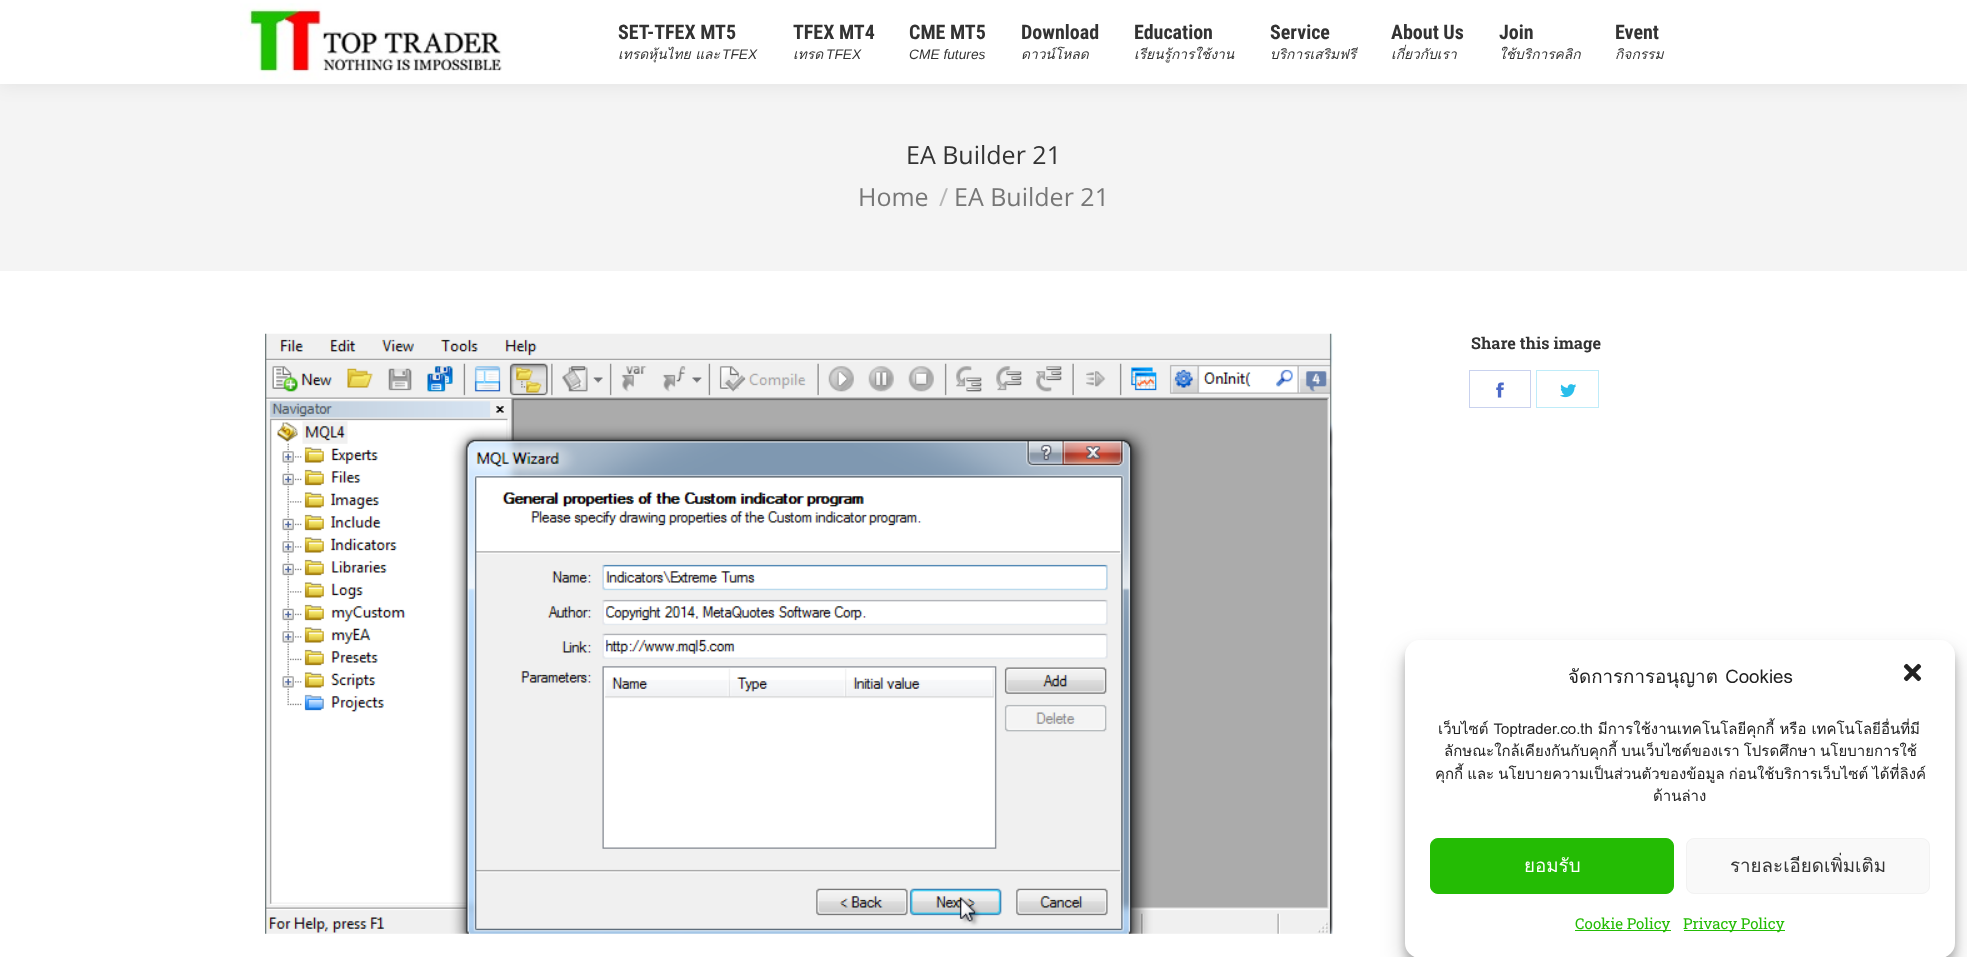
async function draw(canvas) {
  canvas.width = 1967;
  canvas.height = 957;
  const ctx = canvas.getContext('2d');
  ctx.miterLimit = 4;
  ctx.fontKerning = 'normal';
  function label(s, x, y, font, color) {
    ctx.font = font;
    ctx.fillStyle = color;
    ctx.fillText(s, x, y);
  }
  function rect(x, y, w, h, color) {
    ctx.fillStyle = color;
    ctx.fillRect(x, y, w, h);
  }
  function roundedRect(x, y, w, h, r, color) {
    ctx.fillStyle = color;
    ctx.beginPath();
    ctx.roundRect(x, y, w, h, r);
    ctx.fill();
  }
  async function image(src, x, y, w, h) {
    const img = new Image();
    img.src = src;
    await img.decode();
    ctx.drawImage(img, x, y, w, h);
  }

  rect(0, 0, 1967, 957, '#fff');
  rect(0, 84, 1967, 187, '#f4f4f4');
  ctx.fillStyle = '#00000012';
  ctx.filter = 'blur(9.5px)';
  ctx.beginPath();
  ctx.rect(-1, -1, 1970, 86);
  ctx.fill();
  ctx.filter = 'none';
  rect(0, 0, 1967, 84, '#fff');
  await image('assets/img1.png', 240, 3, 262, 77);
  label('SET-TFEX MT5', 618, 39, 'bold 20px Roboto Condensed', '#333');
  label('เทรดหุ้นไทย และ', 618, 59, 'italic 13.75px Loma', '#333');
  label('TFEX', 722, 59, 'italic 13.75px Liberation Sans', '#333');
  label('TFEX MT4', 793, 39, 'bold 20px Roboto Condensed', '#333');
  label('เทรด', 793, 59, 'italic 13.75px Loma', '#333');
  label('TFEX', 826, 59, 'italic 13.75px Liberation Sans', '#333');
  label('CME MT5', 909, 39, 'bold 20px Roboto Condensed', '#333');
  label('CME futures', 909, 59, 'italic 13.75px Liberation Sans', '#333');
  label('Download', 1021, 39, 'bold 20px Roboto Condensed', '#333');
  label('ดาวน์โหลด', 1021, 59, 'italic 13.75px Loma', '#333');
  label('Education', 1134, 39, 'bold 20px Roboto Condensed', '#333');
  label('เรียนรู้การใช้งาน', 1134, 59, 'italic 13.75px Loma', '#333');
  label('Service', 1270, 39, 'bold 20px Roboto Condensed', '#333');
  label('บริการเสริมฟรี', 1270, 59, 'italic 13.75px Loma', '#333');
  label('About Us', 1391, 39, 'bold 20px Roboto Condensed', '#333');
  label('เกี่ยวกับเรา', 1391, 59, 'italic 13.75px Loma', '#333');
  label('Join', 1499, 39, 'bold 20px Roboto Condensed', '#333');
  label('ใช้บริการคลิก', 1499, 59, 'italic 13.75px Loma', '#333');
  label('Event', 1615, 39, 'bold 20px Roboto Condensed', '#333');
  label('กิจกรรม', 1615, 59, 'italic 13.75px Loma', '#333');
  label('EA Builder 21', 906, 164, '25px Open Sans', '#333');
  label('Home', 858, 206, '25px Open Sans', '#777');
  label('/', 939, 206, '25px Open Sans', '#b6b6b6');
  label('EA Builder 21', 954, 206, '25px Open Sans', '#777');
  await image('assets/img2.png', 265, 333, 1068, 601);
  label('Share this image', 1471, 349, 'bold 16.25px Roboto Slab', '#333');
  ctx.strokeStyle = '#c9d2ee';
  ctx.strokeRect(1469.5, 370.5, 61, 37);
  await image('assets/img3.png', 1496, 382, 8, 16);
  ctx.strokeStyle = '#bfecf9';
  ctx.strokeRect(1536.5, 370.5, 62, 37);
  await image('assets/img4.png', 1560, 384, 16, 14);
  ctx.fillStyle = '#0000003b';
  ctx.filter = 'blur(4px)';
  ctx.beginPath();
  ctx.roundRect(1405, 648, 550, 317, 15);
  ctx.fill();
  ctx.filter = 'none';
  ctx.fillStyle = '#00000030';
  ctx.filter = 'blur(12.5px)';
  ctx.beginPath();
  ctx.roundRect(1405, 653, 550, 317, 15);
  ctx.fill();
  ctx.filter = 'none';
  roundedRect(1405, 640, 550, 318, 15, '#fff');
  ctx.wordSpacing = '1px';
  label('จัดการการอนุญาต Cookies', 1568, 683, '18.75px Loma', '#222');
  await image('assets/img5.png', 1903, 663, 19, 19);
  ctx.wordSpacing = '0px';
  label('เว็บไซต์ Toptrader.co.th มีการใช้งานเทคโนโลยีคุกกี้ หรือ เทคโนโลยีอื่นที่มี', 1438, 734, '15px Loma', '#222');
  ctx.wordSpacing = '-1px';
  label('ลักษณะใกล้เคียงกันกับคุกกี้ บนเว็บไซต์ของเรา โปรดศึกษา นโยบายการใช้', 1444, 756, '15px Loma', '#222');
  label('คุกกี้ และ นโยบายความเป็นส่วนตัวของข้อมูล ก่อนใช้บริการเว็บไซต์ ได้ที่ลิงค์', 1435, 779, '15px Loma', '#222');
  ctx.wordSpacing = '0px';
  label('ด้านล่าง', 1653, 801, '15px Loma', '#222');
  ctx.fillStyle = '#24bc04';
  ctx.beginPath();
  ctx.roundRect(1430.5, 838.5, 243, 55, 7.5);
  ctx.fill();
  ctx.strokeStyle = '#24bc04';
  ctx.stroke();
  label('ยอมรับ', 1524, 872, '18.75px Loma', '#fff');
  ctx.fillStyle = '#f9f9f9';
  ctx.beginPath();
  ctx.roundRect(1686.5, 838.5, 243, 55, 7.5);
  ctx.fill();
  ctx.strokeStyle = '#f2f2f2';
  ctx.stroke();
  label('รายละเอียดเพิ่มเติม', 1730, 872, '18.75px Loma', '#333');
  rect(1575, 930, 96, 1, '#24bc04');
  label('Cookie Policy', 1575, 929, '15px Roboto Slab', '#24bc04');
  rect(1684, 930, 101, 1, '#24bc04');
  label('Privacy Policy', 1683, 929, '15px Roboto Slab', '#24bc04');
}

draw(document.querySelector('canvas'));
